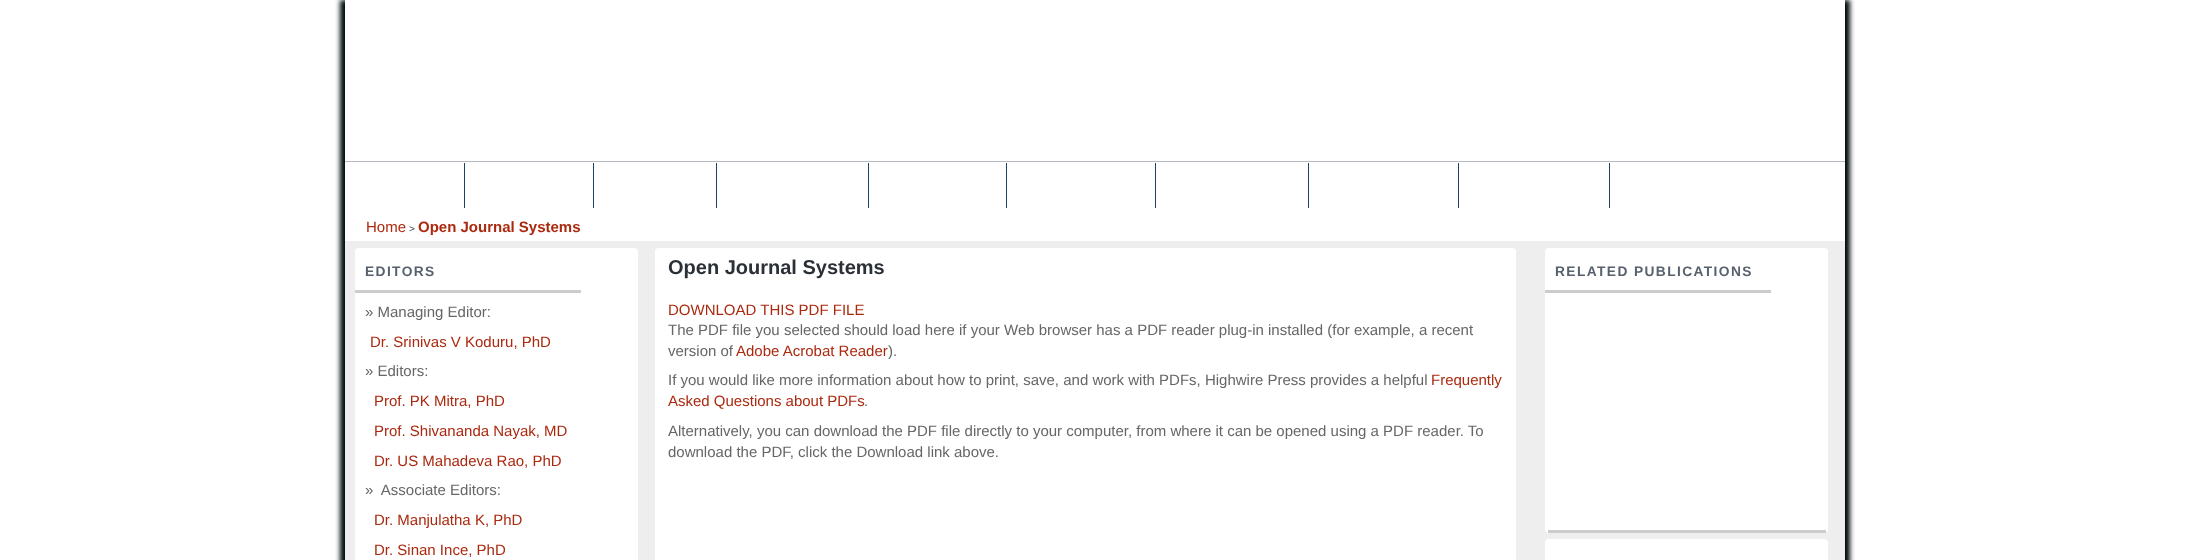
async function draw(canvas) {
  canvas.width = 2189;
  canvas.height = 560;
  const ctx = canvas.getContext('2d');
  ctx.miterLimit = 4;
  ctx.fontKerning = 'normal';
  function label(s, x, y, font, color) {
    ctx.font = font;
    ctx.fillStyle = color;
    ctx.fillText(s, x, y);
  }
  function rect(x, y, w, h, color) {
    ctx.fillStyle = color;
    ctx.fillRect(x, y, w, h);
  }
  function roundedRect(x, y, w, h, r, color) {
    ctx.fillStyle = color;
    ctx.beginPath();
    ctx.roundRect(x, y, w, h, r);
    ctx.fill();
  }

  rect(0, 0, 2189, 560, '#fff');
  ctx.fillStyle = '#000d0e';
  ctx.filter = 'blur(2.5px)';
  ctx.beginPath();
  ctx.rect(340, 0, 1500, 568);
  ctx.fill();
  ctx.filter = 'none';
  ctx.fillStyle = '#000809';
  ctx.filter = 'blur(2.5px)';
  ctx.beginPath();
  ctx.rect(350, 0, 1500, 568);
  ctx.fill();
  ctx.filter = 'none';
  rect(345, 241, 1500, 319, '#eee');
  rect(345, 0, 1500, 241, '#fff');
  rect(345, 161, 1500, 1, '#b4babf');
  rect(464, 163, 1, 45, '#1b4266');
  rect(593, 163, 1, 45, '#1b4266');
  rect(716, 163, 1, 45, '#1b4266');
  rect(868, 163, 1, 45, '#1b4266');
  rect(1006, 163, 1, 45, '#1b4266');
  rect(1155, 163, 1, 45, '#1b4266');
  rect(1308, 163, 1, 45, '#1b4266');
  rect(1458, 163, 1, 45, '#1b4266');
  rect(1609, 163, 1, 45, '#1b4266');
  label('Home', 366, 232, '15px Liberation Sans', '#ab290f');
  label('>', 409, 232, '10px Liberation Sans', '#394048');
  label('Open Journal Systems', 418, 232, 'bold 15px Liberation Sans', '#ab290f');
  roundedRect(655, 248, 861, 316, 4, '#fff');
  label('Open Journal Systems', 668, 274, 'bold 20px Liberation Sans', '#2b3036');
  label('DOWNLOAD THIS PDF FILE', 668, 315, '15px Liberation Sans', '#ab290f');
  label('The PDF file you selected should load here if your Web browser has a PDF reader plug-in installed (for example, a recent', 668, 335, '15px Liberation Sans', '#666');
  label('version of', 668, 356, '15px Liberation Sans', '#666');
  label('Adobe Acrobat Reader', 736, 356, '15px Liberation Sans', '#ab290f');
  label(').', 888, 356, '15px Liberation Sans', '#666');
  label('If you would like more information about how to print, save, and work with PDFs, Highwire Press provides a helpful', 668, 385, '15px Liberation Sans', '#666');
  label('Frequently', 1431, 385, '15px Liberation Sans', '#ab290f');
  label('Asked Questions about PDFs', 668, 406, '15px Liberation Sans', '#ab290f');
  label('.', 864, 406, '15px Liberation Sans', '#666');
  label('Alternatively, you can download the PDF file directly to your computer, from where it can be opened using a PDF reader. To', 668, 436, '15px Liberation Sans', '#666');
  label('download the PDF, click the Download link above.', 668, 457, '15px Liberation Sans', '#666');
  roundedRect(355, 248, 283, 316, 4, '#fff');
  rect(355, 290, 226, 3, '#ccc');
  ctx.letterSpacing = '1.4px';
  label('EDITORS', 365, 276, 'bold 13.75px Liberation Sans', '#57616e');
  ctx.letterSpacing = '0px';
  label('» Managing Editor:', 365, 317, '15px Liberation Sans', '#666');
  label('Dr. Srinivas V Koduru, PhD', 370, 347, '15px Liberation Sans', '#ab290f');
  label('» Editors:', 365, 376, '15px Liberation Sans', '#666');
  label('Prof. PK Mitra, PhD', 374, 406, '15px Liberation Sans', '#ab290f');
  label('Prof. Shivananda Nayak, MD', 374, 436, '15px Liberation Sans', '#ab290f');
  label('Dr. US Mahadeva Rao, PhD', 374, 466, '15px Liberation Sans', '#ab290f');
  label('»  Associate Editors:', 365, 495, '15px Liberation Sans', '#666');
  label('Dr. Manjulatha K, PhD', 374, 525, '15px Liberation Sans', '#ab290f');
  label('Dr. Sinan Ince, PhD', 374, 555, '15px Liberation Sans', '#ab290f');
  roundedRect(1545, 248, 283, 285, 4, '#fff');
  rect(1548, 530, 278, 3, '#ccc');
  rect(1545, 290, 226, 3, '#ccc');
  ctx.letterSpacing = '1.4px';
  label('RELATED PUBLICATIONS', 1555, 276, 'bold 13.75px Liberation Sans', '#57616e');
  roundedRect(1545, 539, 283, 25, 4, '#fff');
}

draw(document.querySelector('canvas'));
